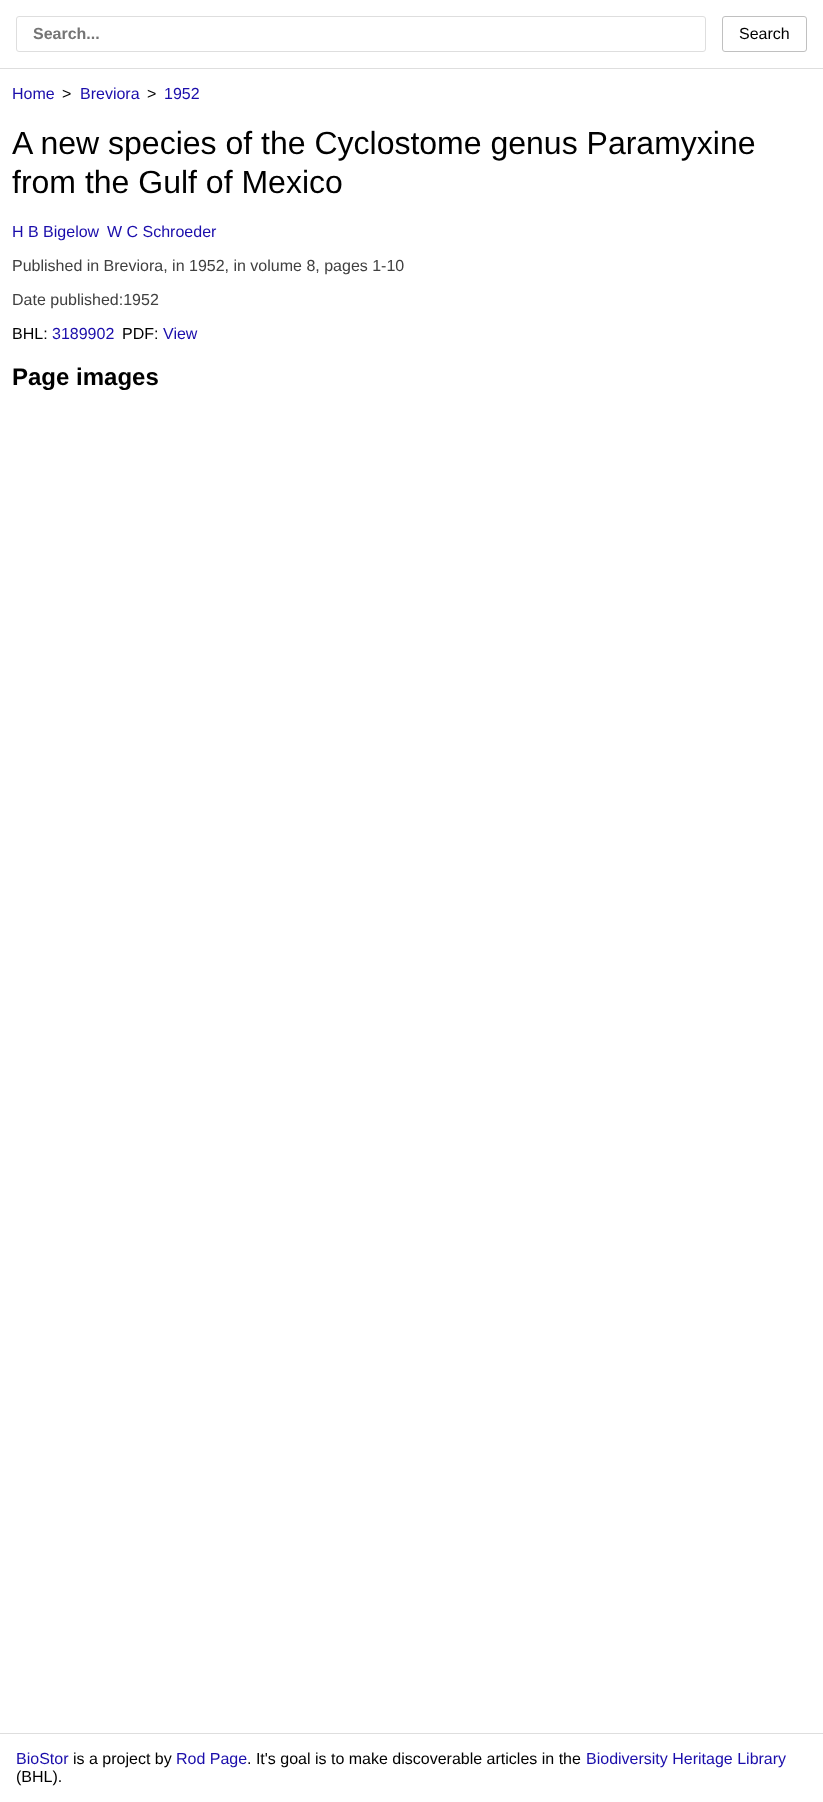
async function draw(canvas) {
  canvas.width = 823;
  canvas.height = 1802;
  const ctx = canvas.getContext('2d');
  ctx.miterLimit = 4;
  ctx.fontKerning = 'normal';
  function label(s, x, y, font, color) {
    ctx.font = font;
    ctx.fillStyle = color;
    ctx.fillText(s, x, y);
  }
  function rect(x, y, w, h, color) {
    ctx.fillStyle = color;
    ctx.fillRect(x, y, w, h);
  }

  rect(0, 0, 823, 1802, '#fff');
  rect(0, 68, 823, 1, '#dedede');
  ctx.beginPath();
  ctx.roundRect(16.5, 16.5, 689, 35, 2.5);
  ctx.strokeStyle = '#dedede';
  ctx.stroke();
  label('Search...', 33, 39, 'bold 16px Liberation Sans', '#757575');
  ctx.beginPath();
  ctx.roundRect(722.5, 16.5, 84, 35, 2.5);
  ctx.strokeStyle = '#c0c0c0';
  ctx.stroke();
  label('Search', 739, 39, '16px Liberation Sans', '#000');
  label('Home', 12, 99, '16px Liberation Sans', '#1a0dab');
  label('>', 62, 99, '16px Liberation Sans', '#000');
  label('Breviora', 80, 99, '16px Liberation Sans', '#1a0dab');
  label('>', 147, 99, '16px Liberation Sans', '#000');
  label('1952', 164, 99, '16px Liberation Sans', '#1a0dab');
  label('A new species of the Cyclostome genus Paramyxine', 12, 154, '32px Liberation Sans', '#000');
  label('from the Gulf of Mexico', 12, 193, '32px Liberation Sans', '#000');
  label('H B Bigelow', 12, 237, '16px Liberation Sans', '#1a0dab');
  label('W C Schroeder', 107, 237, '16px Liberation Sans', '#1a0dab');
  label('Published in Breviora, in 1952, in volume 8, pages 1-10', 12, 271, '16px Liberation Sans', '#404040');
  label('Date published:1952', 12, 305, '16px Liberation Sans', '#404040');
  label('BHL:', 12, 339, '16px Liberation Sans', '#000');
  label('3189902', 52, 339, '16px Liberation Sans', '#1a0dab');
  label('PDF:', 122, 339, '16px Liberation Sans', '#000');
  label('View', 163, 339, '16px Liberation Sans', '#1a0dab');
  label('Page images', 12, 385, 'bold 24px Liberation Sans', '#000');
  rect(0, 1733, 823, 1, '#dedede');
  label('BioStor', 16, 1764, '16px Liberation Sans', '#1a0dab');
  label('is a project by', 73, 1764, '16px Liberation Sans', '#000');
  label('Rod Page', 176, 1764, '16px Liberation Sans', '#1a0dab');
  label('. It\'s goal is to make discoverable articles in the', 247, 1764, '16px Liberation Sans', '#000');
  label('Biodiversity Heritage Library', 586, 1764, '16px Liberation Sans', '#1a0dab');
  label('(BHL).', 16, 1782, '16px Liberation Sans', '#000');
}

draw(document.querySelector('canvas'));
